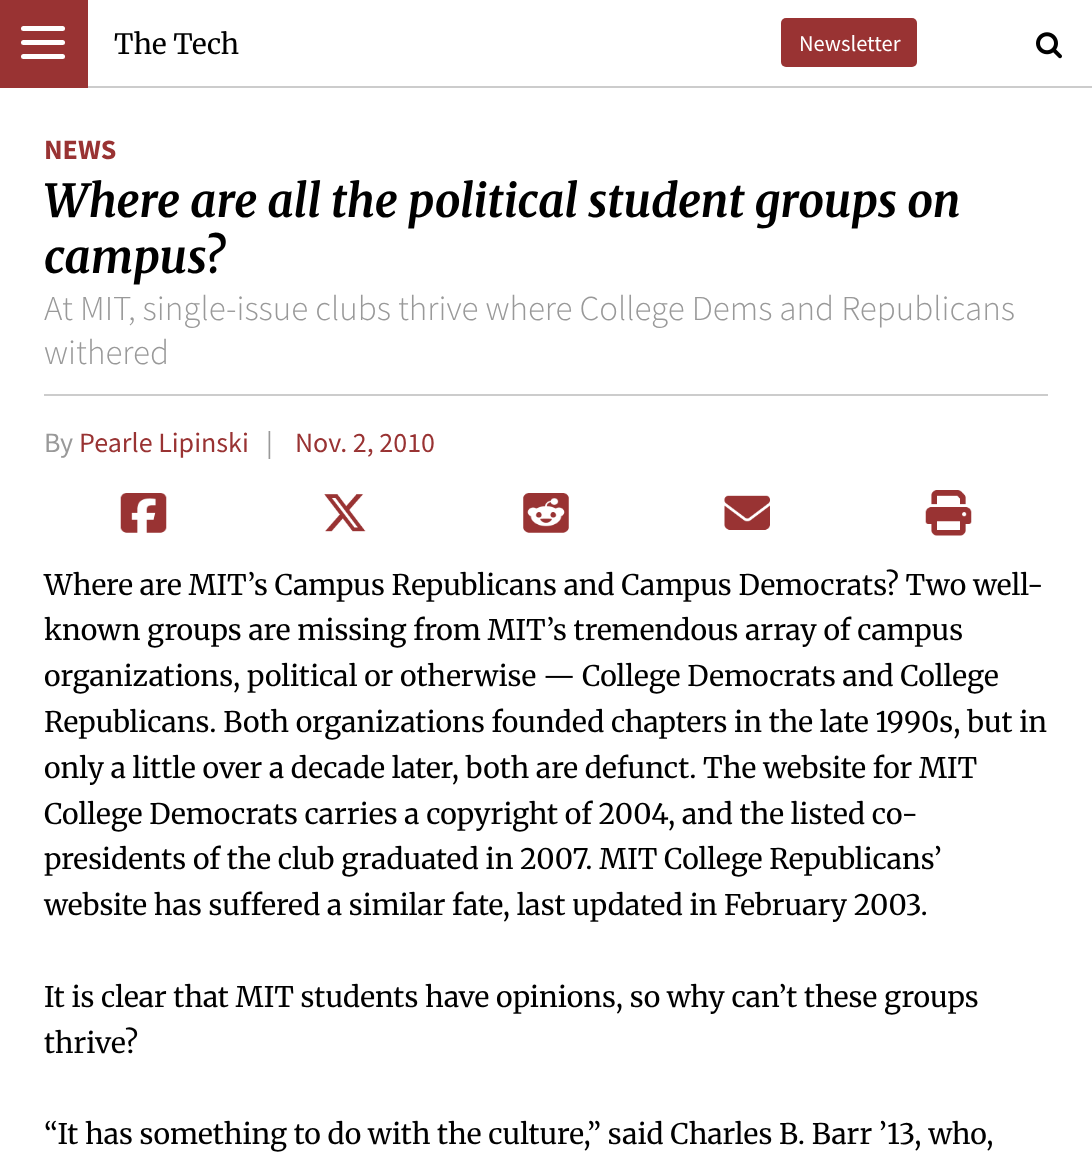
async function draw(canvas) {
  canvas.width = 1092;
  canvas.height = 1152;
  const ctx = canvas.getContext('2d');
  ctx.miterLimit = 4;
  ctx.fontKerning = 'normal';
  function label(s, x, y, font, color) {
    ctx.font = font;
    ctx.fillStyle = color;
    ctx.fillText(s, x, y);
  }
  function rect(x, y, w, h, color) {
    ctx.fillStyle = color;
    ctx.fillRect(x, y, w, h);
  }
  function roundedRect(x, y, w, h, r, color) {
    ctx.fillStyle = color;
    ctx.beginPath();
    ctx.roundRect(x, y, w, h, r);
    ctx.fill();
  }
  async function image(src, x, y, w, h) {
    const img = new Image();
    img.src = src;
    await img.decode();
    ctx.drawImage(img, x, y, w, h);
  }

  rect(0, 0, 1092, 1152, '#fff');
  rect(88, 86, 1004, 2, '#ccc');
  rect(0, 0, 88, 88, '#933');
  roundedRect(21, 26, 44, 5, 2.5, '#fff');
  roundedRect(21, 40, 44, 5, 2.5, '#fff');
  roundedRect(21, 54, 44, 5, 2.5, '#fff');
  label('The Tech', 114, 54, '28px Merriweather', '#000');
  roundedRect(781, 18, 136, 49, 5, '#933');
  label('Newsletter', 799, 51, '22.5px Source Sans Pro', '#fff');
  await image('assets/img1.png', 1036, 32, 26, 27);
  label('NEWS', 44, 159, 'bold 28px Source Sans Pro', '#933');
  label('Where are all the political student groups on', 44, 217, 'italic bold 45.3px Merriweather', '#000');
  label('campus?', 44, 273, 'italic bold 45.3px Merriweather', '#000');
  rect(44, 394, 1004, 2, '#ccc');
  label('At MIT, single-issue clubs thrive where College Dems and Republicans', 44, 320, '300 35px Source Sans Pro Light', '#999');
  label('withered', 44, 364, '300 35px Source Sans Pro Light', '#999');
  label('By', 44, 452, '28px Source Sans Pro', '#999');
  label('Pearle Lipinski', 79, 452, '28px Source Sans Pro', '#933');
  label('|', 266, 452, '28px Source Sans Pro', '#999');
  label('Nov. 2, 2010', 295, 452, '28px Source Sans Pro', '#933');
  await image('assets/img2.png', 120, 493, 47, 40);
  await image('assets/img3.png', 324, 494, 42, 38);
  await image('assets/img4.png', 523, 493, 46, 40);
  await image('assets/img5.png', 724, 495, 46, 35);
  await image('assets/img6.png', 925, 490, 47, 46);
  label('Where are MIT’s Campus Republicans and Campus Democrats? Two well-', 44, 595, '28.3px Merriweather', '#000');
  label('known groups are missing from MIT’s tremendous array of campus', 44, 640, '28.3px Merriweather', '#000');
  label('organizations, political or otherwise — College Democrats and College', 44, 686, '28.3px Merriweather', '#000');
  label('Republicans. Both organizations founded chapters in the late 1990s, but in', 44, 732, '28.3px Merriweather', '#000');
  label('only a little over a decade later, both are defunct. The website for MIT', 44, 778, '28.3px Merriweather', '#000');
  label('College Democrats carries a copyright of 2004, and the listed co-', 44, 824, '28.3px Merriweather', '#000');
  label('presidents of the club graduated in 2007. MIT College Republicans’', 44, 869, '28.3px Merriweather', '#000');
  label('website has suffered a similar fate, last updated in February 2003.', 44, 915, '28.3px Merriweather', '#000');
  label('It is clear that MIT students have opinions, so why can’t these groups', 44, 1007, '28.3px Merriweather', '#000');
  label('thrive?', 44, 1053, '28.3px Merriweather', '#000');
  label('“It has something to do with the culture,” said Charles B. Barr ’13, who,', 44, 1144, '28.3px Merriweather', '#000');
}

draw(document.querySelector('canvas'));
